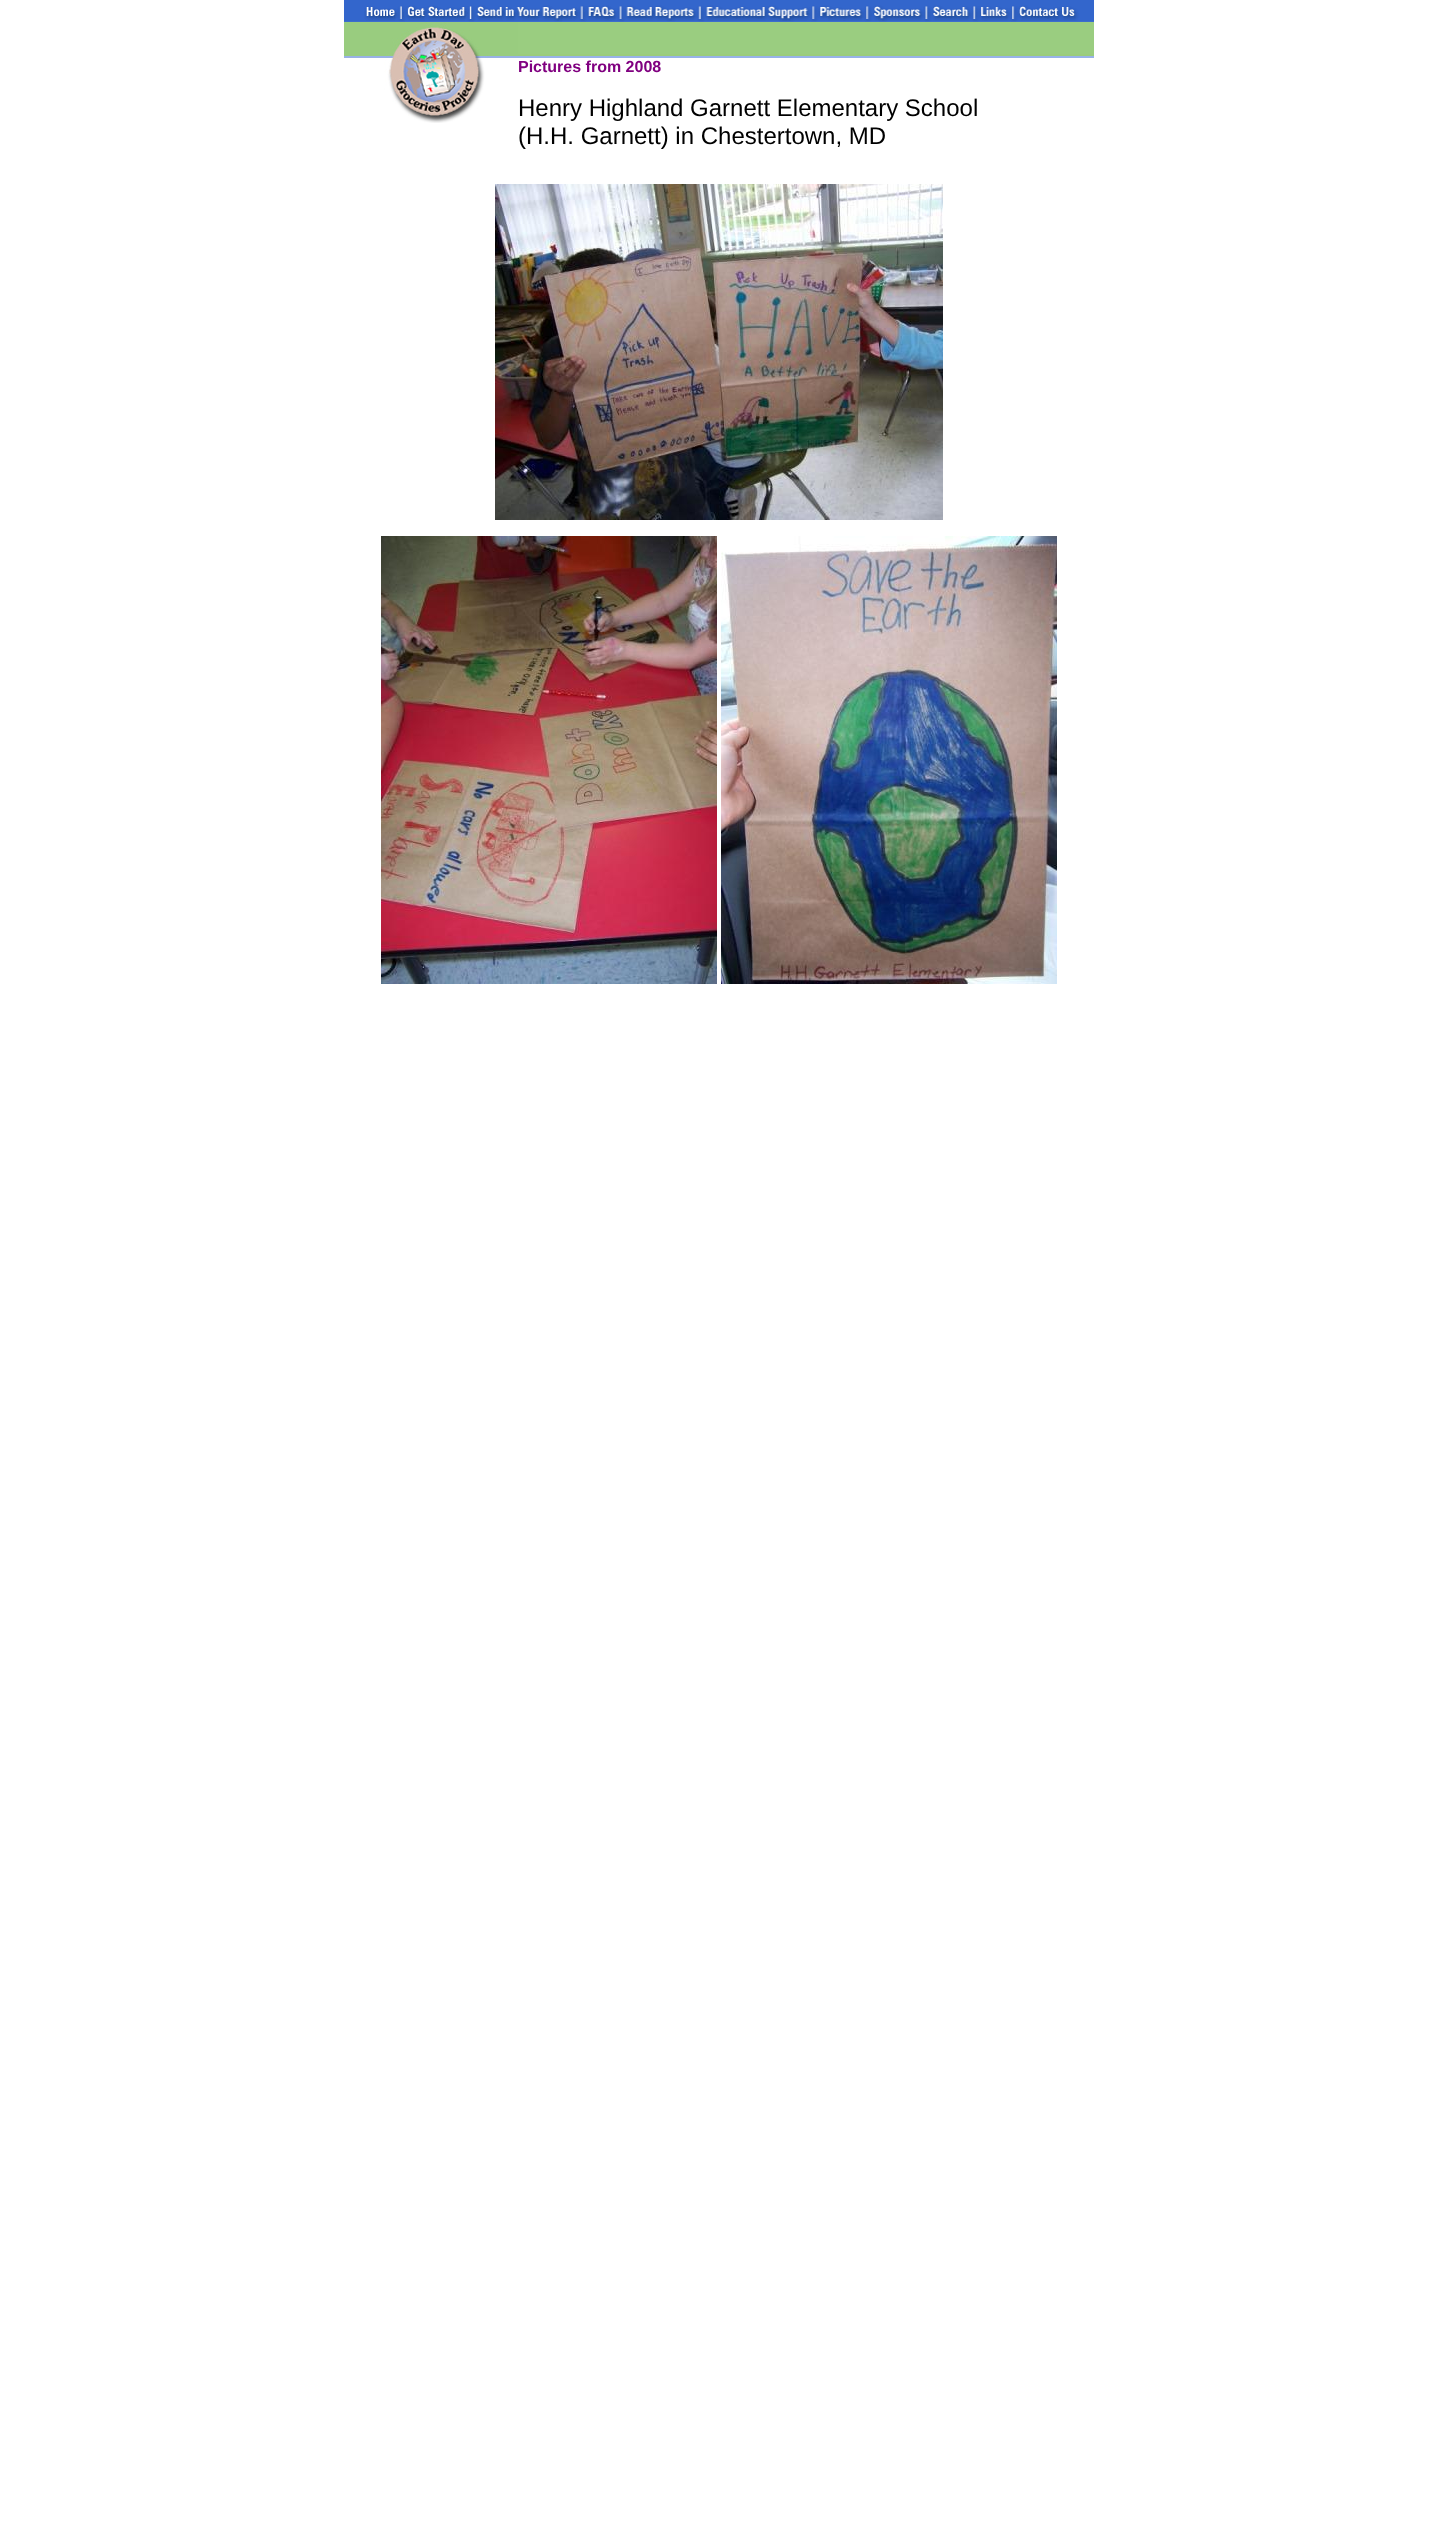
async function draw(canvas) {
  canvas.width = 1438;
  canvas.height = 2523;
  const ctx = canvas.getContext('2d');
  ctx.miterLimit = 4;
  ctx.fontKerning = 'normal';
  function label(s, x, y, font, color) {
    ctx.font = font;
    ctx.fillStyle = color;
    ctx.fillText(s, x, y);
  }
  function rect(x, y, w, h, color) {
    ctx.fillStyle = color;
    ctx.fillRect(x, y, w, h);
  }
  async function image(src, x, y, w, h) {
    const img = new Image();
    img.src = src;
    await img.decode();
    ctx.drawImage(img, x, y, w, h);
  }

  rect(0, 0, 1438, 2523, '#fff');
  await image('assets/img1.png', 344, 0, 750, 22);
  await image('assets/img2.png', 344, 22, 174, 101);
  await image('assets/img3.png', 518, 22, 576, 36);
  label('Pictures from 2008', 518, 72, 'bold 16px Liberation Sans', '#800080');
  label('Henry Highland Garnett Elementary School', 518, 116, '24px Liberation Sans', '#000');
  label('(H.H. Garnett) in Chestertown, MD', 518, 144, '24px Liberation Sans', '#000');
  await image('assets/img4.png', 495, 184, 448, 336);
  await image('assets/img5.png', 381, 536, 336, 448);
  await image('assets/img6.png', 721, 536, 336, 448);
}

draw(document.querySelector('canvas'));
